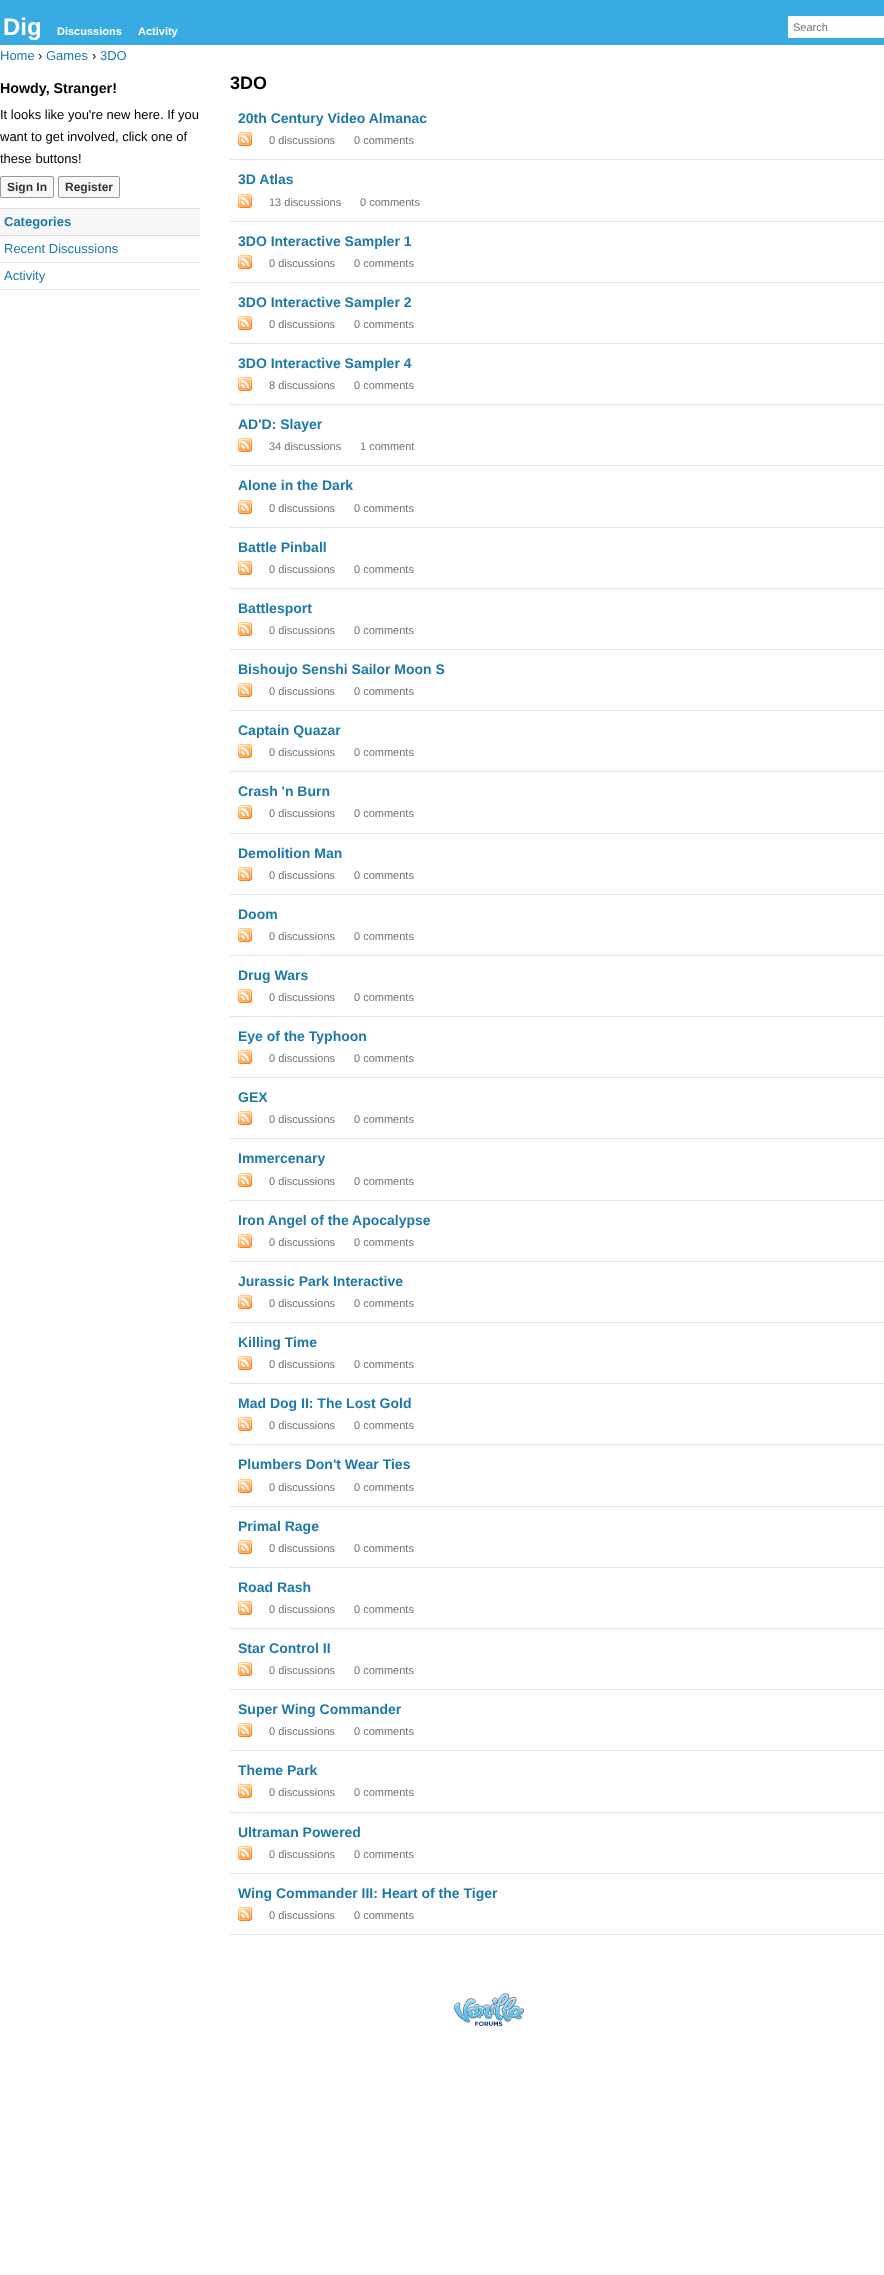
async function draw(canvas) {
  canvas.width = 884;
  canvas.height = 2275;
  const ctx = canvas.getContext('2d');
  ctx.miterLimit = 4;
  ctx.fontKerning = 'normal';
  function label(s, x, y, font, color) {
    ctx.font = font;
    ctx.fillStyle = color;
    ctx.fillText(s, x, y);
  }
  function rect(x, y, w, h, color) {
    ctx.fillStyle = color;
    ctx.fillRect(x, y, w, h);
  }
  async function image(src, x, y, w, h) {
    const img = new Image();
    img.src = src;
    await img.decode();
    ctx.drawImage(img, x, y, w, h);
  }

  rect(0, 0, 884, 2275, '#fff');
  rect(0, 0, 884, 45, '#38abe3');
  label('Dig', 3, 35, 'bold 24px Liberation Sans', '#fff');
  label('Discussions', 57, 35, 'bold 11px Liberation Sans', '#fff');
  label('Activity', 138, 35, 'bold 11px Liberation Sans', '#fff');
  rect(788, 16, 96, 22, '#fff');
  label('Search', 793, 31, '11px Liberation Sans', '#757575');
  label('Home', 0, 60, '13px Liberation Sans', '#1e79a7');
  label('›', 38, 60, '13px Liberation Sans', '#000');
  label('Games', 46, 60, '13px Liberation Sans', '#1e79a7');
  label('›', 92, 60, '13px Liberation Sans', '#000');
  label('3DO', 100, 60, '13px Liberation Sans', '#1e79a7');
  label('Howdy, Stranger!', 0, 93, 'bold 14.25px Liberation Sans', '#000');
  label('It looks like you\'re new here. If you', 0, 119, '13px Liberation Sans', '#000');
  label('want to get involved, click one of', 0, 141, '13px Liberation Sans', '#000');
  label('these buttons!', 0, 163, '13px Liberation Sans', '#000');
  ctx.fillStyle = '#f8f8f8';
  ctx.beginPath();
  ctx.roundRect(0.5, 176.5, 53, 21, 1.5);
  ctx.fill();
  ctx.strokeStyle = '#999';
  ctx.stroke();
  label('Sign In', 7, 191, 'bold 12px Liberation Sans', '#333');
  ctx.fillStyle = '#f8f8f8';
  ctx.beginPath();
  ctx.roundRect(58.5, 176.5, 61, 21, 1.5);
  ctx.fill();
  ctx.stroke();
  label('Register', 65, 191, 'bold 12px Liberation Sans', '#333');
  rect(0, 209, 200, 26, '#f7f7f7');
  rect(0, 208, 200, 1, '#dedede');
  rect(0, 235, 200, 1, '#dedede');
  label('Categories', 4, 226, 'bold 13px Liberation Sans', '#1e79a7');
  rect(0, 262, 200, 1, '#e6e6e6');
  label('Recent Discussions', 4, 253, '13px Liberation Sans', '#1e79a7');
  rect(0, 289, 200, 1, '#e6e6e6');
  label('Activity', 4, 280, '13px Liberation Sans', '#1e79a7');
  label('3DO', 230, 89, 'bold 18px Liberation Sans', '#000');
  rect(230, 159, 654, 1, '#e6e6e6');
  label('20th Century Video Almanac', 238, 123, 'bold 14px Liberation Sans', '#1e79a7');
  await image('assets/img1.png', 238, 132, 14, 14);
  label('0 discussions', 269, 144, '11px Liberation Sans', '#70727c');
  label('0 comments', 354, 144, '11px Liberation Sans', '#70727c');
  rect(230, 221, 654, 1, '#e6e6e6');
  label('3D Atlas', 238, 184, 'bold 14px Liberation Sans', '#1e79a7');
  await image('assets/img1.png', 238, 194, 14, 14);
  label('13 discussions', 269, 206, '11px Liberation Sans', '#70727c');
  label('0 comments', 360, 206, '11px Liberation Sans', '#70727c');
  rect(230, 282, 654, 1, '#e6e6e6');
  label('3DO Interactive Sampler 1', 238, 246, 'bold 14px Liberation Sans', '#1e79a7');
  await image('assets/img1.png', 238, 255, 14, 14);
  label('0 discussions', 269, 267, '11px Liberation Sans', '#70727c');
  label('0 comments', 354, 267, '11px Liberation Sans', '#70727c');
  rect(230, 343, 654, 1, '#e6e6e6');
  label('3DO Interactive Sampler 2', 238, 307, 'bold 14px Liberation Sans', '#1e79a7');
  await image('assets/img1.png', 238, 316, 14, 14);
  label('0 discussions', 269, 328, '11px Liberation Sans', '#70727c');
  label('0 comments', 354, 328, '11px Liberation Sans', '#70727c');
  rect(230, 404, 654, 1, '#e6e6e6');
  label('3DO Interactive Sampler 4', 238, 368, 'bold 14px Liberation Sans', '#1e79a7');
  await image('assets/img1.png', 238, 377, 14, 14);
  label('8 discussions', 269, 389, '11px Liberation Sans', '#70727c');
  label('0 comments', 354, 389, '11px Liberation Sans', '#70727c');
  rect(230, 465, 654, 1, '#e6e6e6');
  label('AD\'D: Slayer', 238, 429, 'bold 14px Liberation Sans', '#1e79a7');
  await image('assets/img1.png', 238, 438, 14, 14);
  label('34 discussions', 269, 450, '11px Liberation Sans', '#70727c');
  label('1 comment', 360, 450, '11px Liberation Sans', '#70727c');
  rect(230, 527, 654, 1, '#e6e6e6');
  label('Alone in the Dark', 238, 490, 'bold 14px Liberation Sans', '#1e79a7');
  await image('assets/img1.png', 238, 500, 14, 14);
  label('0 discussions', 269, 512, '11px Liberation Sans', '#70727c');
  label('0 comments', 354, 512, '11px Liberation Sans', '#70727c');
  rect(230, 588, 654, 1, '#e6e6e6');
  label('Battle Pinball', 238, 552, 'bold 14px Liberation Sans', '#1e79a7');
  await image('assets/img1.png', 238, 561, 14, 14);
  label('0 discussions', 269, 573, '11px Liberation Sans', '#70727c');
  label('0 comments', 354, 573, '11px Liberation Sans', '#70727c');
  rect(230, 649, 654, 1, '#e6e6e6');
  label('Battlesport', 238, 613, 'bold 14px Liberation Sans', '#1e79a7');
  await image('assets/img1.png', 238, 622, 14, 14);
  label('0 discussions', 269, 634, '11px Liberation Sans', '#70727c');
  label('0 comments', 354, 634, '11px Liberation Sans', '#70727c');
  rect(230, 710, 654, 1, '#e6e6e6');
  label('Bishoujo Senshi Sailor Moon S', 238, 674, 'bold 14px Liberation Sans', '#1e79a7');
  await image('assets/img1.png', 238, 683, 14, 14);
  label('0 discussions', 269, 695, '11px Liberation Sans', '#70727c');
  label('0 comments', 354, 695, '11px Liberation Sans', '#70727c');
  rect(230, 771, 654, 1, '#e6e6e6');
  label('Captain Quazar', 238, 735, 'bold 14px Liberation Sans', '#1e79a7');
  await image('assets/img1.png', 238, 744, 14, 14);
  label('0 discussions', 269, 756, '11px Liberation Sans', '#70727c');
  label('0 comments', 354, 756, '11px Liberation Sans', '#70727c');
  rect(230, 833, 654, 1, '#e6e6e6');
  label('Crash \'n Burn', 238, 796, 'bold 14px Liberation Sans', '#1e79a7');
  await image('assets/img1.png', 238, 805, 14, 14);
  label('0 discussions', 269, 817, '11px Liberation Sans', '#70727c');
  label('0 comments', 354, 817, '11px Liberation Sans', '#70727c');
  rect(230, 894, 654, 1, '#e6e6e6');
  label('Demolition Man', 238, 858, 'bold 14px Liberation Sans', '#1e79a7');
  await image('assets/img1.png', 238, 867, 14, 14);
  label('0 discussions', 269, 879, '11px Liberation Sans', '#70727c');
  label('0 comments', 354, 879, '11px Liberation Sans', '#70727c');
  rect(230, 955, 654, 1, '#e6e6e6');
  label('Doom', 238, 919, 'bold 14px Liberation Sans', '#1e79a7');
  await image('assets/img1.png', 238, 928, 14, 14);
  label('0 discussions', 269, 940, '11px Liberation Sans', '#70727c');
  label('0 comments', 354, 940, '11px Liberation Sans', '#70727c');
  rect(230, 1016, 654, 1, '#e6e6e6');
  label('Drug Wars', 238, 980, 'bold 14px Liberation Sans', '#1e79a7');
  await image('assets/img1.png', 238, 989, 14, 14);
  label('0 discussions', 269, 1001, '11px Liberation Sans', '#70727c');
  label('0 comments', 354, 1001, '11px Liberation Sans', '#70727c');
  rect(230, 1077, 654, 1, '#e6e6e6');
  label('Eye of the Typhoon', 238, 1041, 'bold 14px Liberation Sans', '#1e79a7');
  await image('assets/img1.png', 238, 1050, 14, 14);
  label('0 discussions', 269, 1062, '11px Liberation Sans', '#70727c');
  label('0 comments', 354, 1062, '11px Liberation Sans', '#70727c');
  rect(230, 1138, 654, 1, '#e6e6e6');
  label('GEX', 238, 1102, 'bold 14px Liberation Sans', '#1e79a7');
  await image('assets/img1.png', 238, 1111, 14, 14);
  label('0 discussions', 269, 1123, '11px Liberation Sans', '#70727c');
  label('0 comments', 354, 1123, '11px Liberation Sans', '#70727c');
  rect(230, 1200, 654, 1, '#e6e6e6');
  label('Immercenary', 238, 1163, 'bold 14px Liberation Sans', '#1e79a7');
  await image('assets/img1.png', 238, 1173, 14, 14);
  label('0 discussions', 269, 1185, '11px Liberation Sans', '#70727c');
  label('0 comments', 354, 1185, '11px Liberation Sans', '#70727c');
  rect(230, 1261, 654, 1, '#e6e6e6');
  label('Iron Angel of the Apocalypse', 238, 1225, 'bold 14px Liberation Sans', '#1e79a7');
  await image('assets/img1.png', 238, 1234, 14, 14);
  label('0 discussions', 269, 1246, '11px Liberation Sans', '#70727c');
  label('0 comments', 354, 1246, '11px Liberation Sans', '#70727c');
  rect(230, 1322, 654, 1, '#e6e6e6');
  label('Jurassic Park Interactive', 238, 1286, 'bold 14px Liberation Sans', '#1e79a7');
  await image('assets/img1.png', 238, 1295, 14, 14);
  label('0 discussions', 269, 1307, '11px Liberation Sans', '#70727c');
  label('0 comments', 354, 1307, '11px Liberation Sans', '#70727c');
  rect(230, 1383, 654, 1, '#e6e6e6');
  label('Killing Time', 238, 1347, 'bold 14px Liberation Sans', '#1e79a7');
  await image('assets/img1.png', 238, 1356, 14, 14);
  label('0 discussions', 269, 1368, '11px Liberation Sans', '#70727c');
  label('0 comments', 354, 1368, '11px Liberation Sans', '#70727c');
  rect(230, 1444, 654, 1, '#e6e6e6');
  label('Mad Dog II: The Lost Gold', 238, 1408, 'bold 14px Liberation Sans', '#1e79a7');
  await image('assets/img1.png', 238, 1417, 14, 14);
  label('0 discussions', 269, 1429, '11px Liberation Sans', '#70727c');
  label('0 comments', 354, 1429, '11px Liberation Sans', '#70727c');
  rect(230, 1506, 654, 1, '#e6e6e6');
  label('Plumbers Don\'t Wear Ties', 238, 1469, 'bold 14px Liberation Sans', '#1e79a7');
  await image('assets/img1.png', 238, 1479, 14, 14);
  label('0 discussions', 269, 1491, '11px Liberation Sans', '#70727c');
  label('0 comments', 354, 1491, '11px Liberation Sans', '#70727c');
  rect(230, 1567, 654, 1, '#e6e6e6');
  label('Primal Rage', 238, 1531, 'bold 14px Liberation Sans', '#1e79a7');
  await image('assets/img1.png', 238, 1540, 14, 14);
  label('0 discussions', 269, 1552, '11px Liberation Sans', '#70727c');
  label('0 comments', 354, 1552, '11px Liberation Sans', '#70727c');
  rect(230, 1628, 654, 1, '#e6e6e6');
  label('Road Rash', 238, 1592, 'bold 14px Liberation Sans', '#1e79a7');
  await image('assets/img1.png', 238, 1601, 14, 14);
  label('0 discussions', 269, 1613, '11px Liberation Sans', '#70727c');
  label('0 comments', 354, 1613, '11px Liberation Sans', '#70727c');
  rect(230, 1689, 654, 1, '#e6e6e6');
  label('Star Control II', 238, 1653, 'bold 14px Liberation Sans', '#1e79a7');
  await image('assets/img1.png', 238, 1662, 14, 14);
  label('0 discussions', 269, 1674, '11px Liberation Sans', '#70727c');
  label('0 comments', 354, 1674, '11px Liberation Sans', '#70727c');
  rect(230, 1750, 654, 1, '#e6e6e6');
  label('Super Wing Commander', 238, 1714, 'bold 14px Liberation Sans', '#1e79a7');
  await image('assets/img1.png', 238, 1723, 14, 14);
  label('0 discussions', 269, 1735, '11px Liberation Sans', '#70727c');
  label('0 comments', 354, 1735, '11px Liberation Sans', '#70727c');
  rect(230, 1812, 654, 1, '#e6e6e6');
  label('Theme Park', 238, 1775, 'bold 14px Liberation Sans', '#1e79a7');
  await image('assets/img1.png', 238, 1784, 14, 14);
  label('0 discussions', 269, 1796, '11px Liberation Sans', '#70727c');
  label('0 comments', 354, 1796, '11px Liberation Sans', '#70727c');
  rect(230, 1873, 654, 1, '#e6e6e6');
  label('Ultraman Powered', 238, 1837, 'bold 14px Liberation Sans', '#1e79a7');
  await image('assets/img1.png', 238, 1846, 14, 14);
  label('0 discussions', 269, 1858, '11px Liberation Sans', '#70727c');
  label('0 comments', 354, 1858, '11px Liberation Sans', '#70727c');
  rect(230, 1934, 654, 1, '#e6e6e6');
  label('Wing Commander III: Heart of the Tiger', 238, 1898, 'bold 14px Liberation Sans', '#1e79a7');
  await image('assets/img1.png', 238, 1907, 14, 14);
  label('0 discussions', 269, 1919, '11px Liberation Sans', '#70727c');
  label('0 comments', 354, 1919, '11px Liberation Sans', '#70727c');
  await image('assets/img2.png', 454, 1993, 70, 33);
}

draw(document.querySelector('canvas'));
